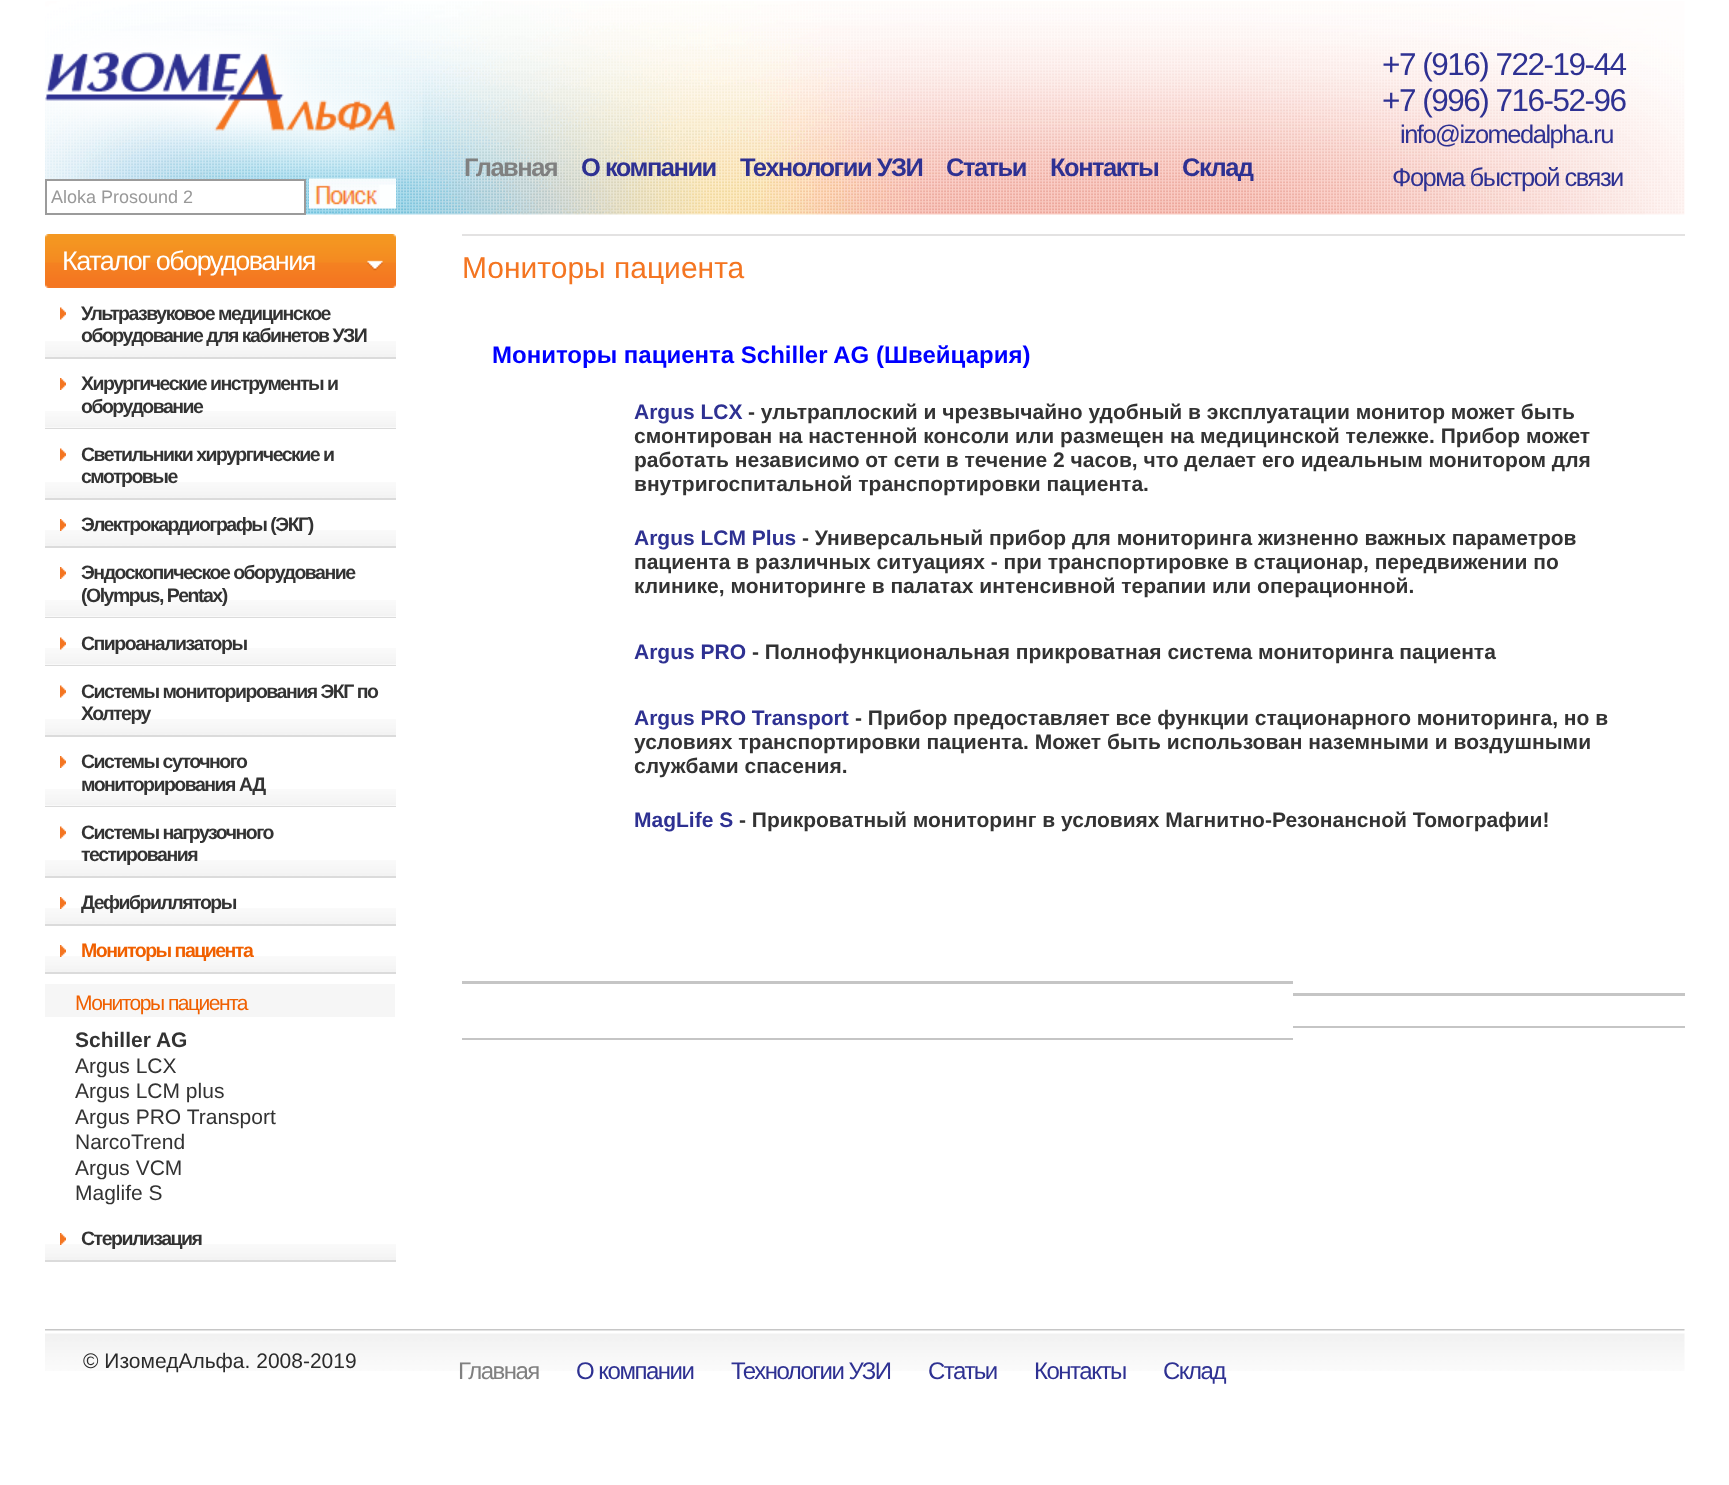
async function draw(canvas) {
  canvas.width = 1729;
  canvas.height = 1485;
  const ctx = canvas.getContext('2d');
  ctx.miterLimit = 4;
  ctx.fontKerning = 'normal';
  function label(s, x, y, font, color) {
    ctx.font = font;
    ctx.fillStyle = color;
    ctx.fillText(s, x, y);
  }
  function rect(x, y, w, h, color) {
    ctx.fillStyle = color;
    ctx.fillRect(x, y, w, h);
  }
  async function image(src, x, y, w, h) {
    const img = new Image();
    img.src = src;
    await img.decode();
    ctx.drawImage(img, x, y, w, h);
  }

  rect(0, 0, 1729, 1485, '#fff');
  await image('assets/img1.png', 45, 1, 1640, 214);
  ctx.letterSpacing = '-1.5px';
  label('Главная', 464, 176, 'bold 25.5px Liberation Sans', '#808080');
  label('О компании', 581, 176, 'bold 25.5px Liberation Sans', '#2e3192');
  label('Технологии УЗИ', 740, 176, 'bold 25.5px Liberation Sans', '#2e3192');
  label('Статьи', 946, 176, 'bold 25.5px Liberation Sans', '#2e3192');
  label('Контакты', 1050, 176, 'bold 25.5px Liberation Sans', '#2e3192');
  label('Склад', 1182, 176, 'bold 25.5px Liberation Sans', '#2e3192');
  label('+7 (916) 722-19-44', 1382, 75, '31.5px Liberation Sans', '#2e3192');
  label('+7 (996) 716-52-96', 1382, 111, '31.5px Liberation Sans', '#2e3192');
  label('info@izomedalpha.ru', 1400, 143, '25.5px Liberation Sans', '#2e3192');
  label('Форма быстрой связи', 1392, 186, '25.5px Liberation Sans', '#2e3192');
  await image('assets/img2.png', 45, 31, 378, 148);
  ctx.fillStyle = '#fff';
  ctx.beginPath();
  ctx.rect(46, 180, 259, 34);
  ctx.fill();
  ctx.strokeStyle = '#9b9b9b';
  ctx.lineWidth = 2;
  ctx.stroke();
  ctx.letterSpacing = '0px';
  label('Aloka Prosound 2', 51, 203, '18px Liberation Sans', '#999');
  await image('assets/img3.png', 309, 178, 87, 31);
  await image('assets/img4.png', 45, 234, 351, 54);
  ctx.letterSpacing = '-1.5px';
  label('Каталог оборудования', 62, 270, '27px Liberation Sans', '#fff');
  await image('assets/img5.png', 45, 341, 351, 16);
  rect(45, 357, 351, 2, '#dbdbdb');
  await image('assets/img6.png', 60, 307, 6, 13);
  label('Ультразвуковое медицинское', 81, 320, 'bold 19.5px Liberation Sans', '#333');
  label('оборудование для кабинетов УЗИ', 81, 342, 'bold 19.5px Liberation Sans', '#333');
  await image('assets/img7.png', 45, 411, 351, 17);
  rect(45, 428, 351, 1, '#dbdbdb');
  await image('assets/img8.png', 60, 378, 6, 12);
  label('Хирургические инструменты и', 81, 390, 'bold 19.5px Liberation Sans', '#333');
  label('оборудование', 81, 413, 'bold 19.5px Liberation Sans', '#333');
  await image('assets/img5.png', 45, 482, 351, 16);
  rect(45, 498, 351, 2, '#dbdbdb');
  await image('assets/img6.png', 60, 448, 6, 13);
  label('Светильники хирургические и', 81, 461, 'bold 19.5px Liberation Sans', '#333');
  label('смотровые', 81, 483, 'bold 19.5px Liberation Sans', '#333');
  await image('assets/img5.png', 45, 530, 351, 16);
  rect(45, 546, 351, 2, '#dbdbdb');
  await image('assets/img9.png', 60, 519, 6, 12);
  label('Электрокардиографы (ЭКГ)', 81, 531, 'bold 19.5px Liberation Sans', '#333');
  await image('assets/img7.png', 45, 600, 351, 17);
  rect(45, 617, 351, 1, '#dbdbdb');
  await image('assets/img8.png', 60, 567, 6, 12);
  label('Эндоскопическое оборудование', 81, 579, 'bold 19.5px Liberation Sans', '#333');
  label('(Olympus, Pentax)', 81, 602, 'bold 19.5px Liberation Sans', '#333');
  await image('assets/img7.png', 45, 648, 351, 17);
  rect(45, 665, 351, 1, '#dbdbdb');
  await image('assets/img10.png', 60, 637, 6, 13);
  label('Спироанализаторы', 81, 650, 'bold 19.5px Liberation Sans', '#333');
  await image('assets/img5.png', 45, 719, 351, 16);
  rect(45, 735, 351, 2, '#dbdbdb');
  await image('assets/img6.png', 60, 685, 6, 13);
  label('Системы мониторирования ЭКГ по', 81, 698, 'bold 19.5px Liberation Sans', '#333');
  label('Холтеру', 81, 720, 'bold 19.5px Liberation Sans', '#333');
  await image('assets/img7.png', 45, 789, 351, 17);
  rect(45, 806, 351, 1, '#dbdbdb');
  await image('assets/img8.png', 60, 756, 6, 12);
  label('Системы суточного', 81, 768, 'bold 19.5px Liberation Sans', '#333');
  label('мониторирования АД', 81, 791, 'bold 19.5px Liberation Sans', '#333');
  await image('assets/img5.png', 45, 860, 351, 16);
  rect(45, 876, 351, 2, '#dbdbdb');
  await image('assets/img6.png', 60, 826, 6, 13);
  label('Системы нагрузочного', 81, 839, 'bold 19.5px Liberation Sans', '#333');
  label('тестирования', 81, 861, 'bold 19.5px Liberation Sans', '#333');
  await image('assets/img5.png', 45, 908, 351, 16);
  rect(45, 924, 351, 2, '#dbdbdb');
  await image('assets/img9.png', 60, 897, 6, 12);
  label('Дефибрилляторы', 81, 909, 'bold 19.5px Liberation Sans', '#333');
  await image('assets/img5.png', 45, 956, 351, 16);
  rect(45, 972, 351, 2, '#dbdbdb');
  await image('assets/img9.png', 60, 945, 6, 12);
  label('Мониторы пациента', 81, 957, 'bold 19.5px Liberation Sans', '#f06000');
  rect(45, 984, 350, 33, '#f6f6f6');
  label('Мониторы пациента', 75, 1010, '21px Liberation Sans', '#f06000');
  ctx.letterSpacing = '0px';
  label('Schiller AG', 75, 1047, 'bold 21px Liberation Sans', '#333');
  label('Argus LCX', 75, 1073, '21px Liberation Sans', '#333');
  label('Argus LCM plus', 75, 1098, '21px Liberation Sans', '#333');
  label('Argus PRO Transport', 75, 1124, '21px Liberation Sans', '#333');
  label('NarcoTrend', 75, 1149, '21px Liberation Sans', '#333');
  label('Argus VCM', 75, 1175, '21px Liberation Sans', '#333');
  label('Maglife S', 75, 1200, '21px Liberation Sans', '#333');
  await image('assets/img5.png', 45, 1244, 351, 16);
  rect(45, 1260, 351, 2, '#dbdbdb');
  await image('assets/img9.png', 60, 1233, 6, 12);
  ctx.letterSpacing = '-1.5px';
  label('Стерилизация', 81, 1245, 'bold 19.5px Liberation Sans', '#333');
  rect(462, 234, 1223, 2, '#e3e2e2');
  ctx.letterSpacing = '0px';
  label('Мониторы пациента', 462, 278, '30px Liberation Sans', '#f47521');
  label('Мониторы пациента Schiller AG (Швейцария)', 492, 363, 'bold 24px Liberation Sans', '#00f');
  label('Argus LCX', 634, 419, 'bold 21px Liberation Sans', '#2e3192');
  label('- ультраплоский и чрезвычайно удобный в эксплуатации монитор может быть', 748, 419, 'bold 21px Liberation Sans', '#333');
  label('смонтирован на настенной консоли или размещен на медицинской тележке. Прибор может', 634, 443, 'bold 21px Liberation Sans', '#333');
  label('работать независимо от сети в течение 2 часов, что делает его идеальным монитором для', 634, 467, 'bold 21px Liberation Sans', '#333');
  label('внутригоспитальной транспортировки пациента.', 634, 491, 'bold 21px Liberation Sans', '#333');
  label('Argus LCM Plus', 634, 545, 'bold 21px Liberation Sans', '#2e3192');
  label('- Универсальный прибор для мониторинга жизненно важных параметров', 802, 545, 'bold 21px Liberation Sans', '#333');
  label('пациента в различных ситуациях - при транспортировке в стационар, передвижении по', 634, 569, 'bold 21px Liberation Sans', '#333');
  label('клинике, мониторинге в палатах интенсивной терапии или операционной.', 634, 593, 'bold 21px Liberation Sans', '#333');
  label('Argus PRO', 634, 659, 'bold 21px Liberation Sans', '#2e3192');
  label('- Полнофункциональная прикроватная система мониторинга пациента', 752, 659, 'bold 21px Liberation Sans', '#333');
  label('Argus PRO Transport', 634, 725, 'bold 21px Liberation Sans', '#2e3192');
  label('- Прибор предоставляет все функции стационарного мониторинга, но в', 855, 725, 'bold 21px Liberation Sans', '#333');
  label('условиях транспортировки пациента. Может быть использован наземными и воздушными', 634, 749, 'bold 21px Liberation Sans', '#333');
  label('службами спасения.', 634, 773, 'bold 21px Liberation Sans', '#333');
  label('MagLife S', 634, 827, 'bold 21px Liberation Sans', '#2e3192');
  label('- Прикроватный мониторинг в условиях Магнитно-Резонансной Томографии!', 739, 827, 'bold 21px Liberation Sans', '#333');
  rect(462, 981, 831, 3, '#c5c5c5');
  rect(462, 1038, 831, 2, '#c5c5c5');
  rect(1293, 993, 392, 3, '#c5c5c5');
  rect(1293, 1026, 392, 2, '#c5c5c5');
  await image('assets/img11.png', 45, 1329, 1640, 42);
  label('© ИзомедАльфа. 2008-2019', 83, 1368, '21px Liberation Sans', '#2b2b2b');
  ctx.letterSpacing = '-1.5px';
  label('Главная', 458, 1379, '24px Liberation Sans', '#808080');
  label('О компании', 576, 1379, '24px Liberation Sans', '#2e3192');
  label('Технологии УЗИ', 731, 1379, '24px Liberation Sans', '#2e3192');
  label('Статьи', 928, 1379, '24px Liberation Sans', '#2e3192');
  label('Контакты', 1034, 1379, '24px Liberation Sans', '#2e3192');
  label('Склад', 1163, 1379, '24px Liberation Sans', '#2e3192');
}

draw(document.querySelector('canvas'));
